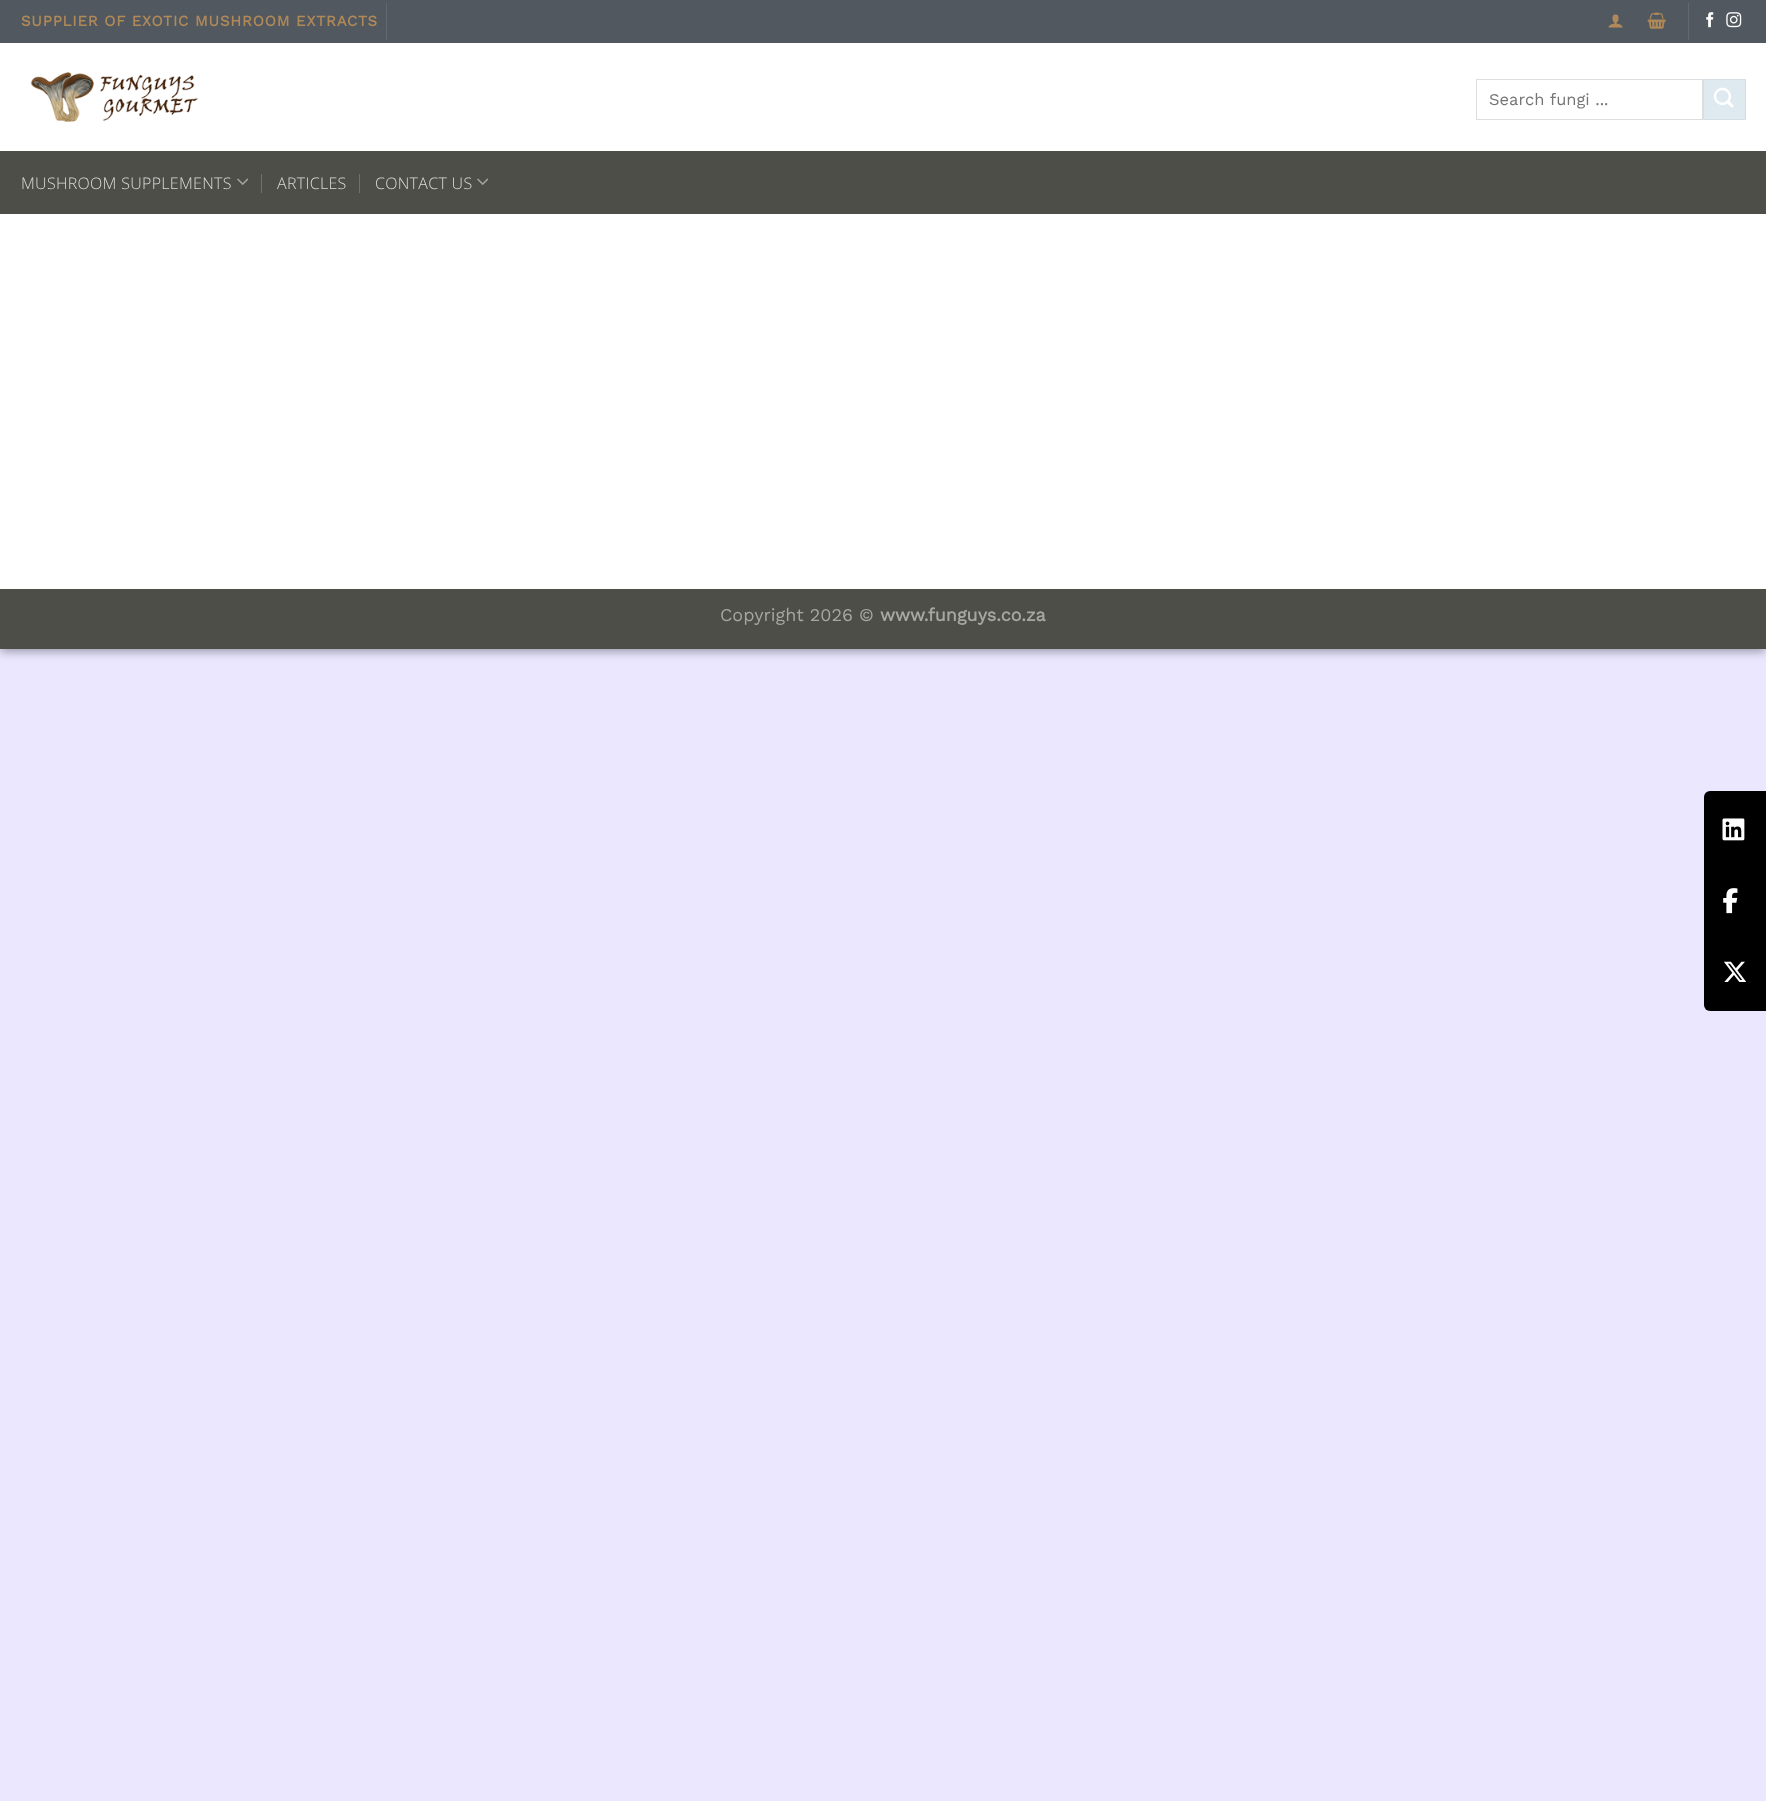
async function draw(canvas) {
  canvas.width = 1766;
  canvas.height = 1801;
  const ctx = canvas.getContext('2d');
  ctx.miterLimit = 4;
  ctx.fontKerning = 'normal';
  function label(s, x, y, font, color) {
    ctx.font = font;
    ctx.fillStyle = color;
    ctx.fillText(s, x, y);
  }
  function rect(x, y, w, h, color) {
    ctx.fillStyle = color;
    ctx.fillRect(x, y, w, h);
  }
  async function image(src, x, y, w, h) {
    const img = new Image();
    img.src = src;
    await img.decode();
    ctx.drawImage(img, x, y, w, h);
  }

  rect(0, 0, 1766, 1801, '#eae7ff');
  ctx.fillStyle = '#0000003b';
  ctx.filter = 'blur(4px)';
  ctx.beginPath();
  ctx.rect(0, 4, 1766, 649);
  ctx.fill();
  ctx.filter = 'none';
  ctx.fillStyle = '#00000029';
  ctx.filter = 'blur(4px)';
  ctx.beginPath();
  ctx.rect(5, 9, 1756, 639);
  ctx.fill();
  ctx.filter = 'none';
  rect(0, 43, 1766, 546, '#fff');
  rect(0, 0, 1766, 43, '#515860');
  ctx.letterSpacing = '0.75px';
  label('SUPPLIER OF EXOTIC MUSHROOM EXTRACTS', 21, 26, 'bold 15px Work Sans', '#b08958');
  rect(386, 3, 1, 37, '#626970');
  await image('assets/img1.png', 1608, 14, 15, 14);
  await image('assets/img2.png', 1647, 12, 19, 17);
  rect(1688, 3, 1, 37, '#626970');
  await image('assets/img3.png', 1706, 12, 8, 16);
  await image('assets/img4.png', 1726, 12, 16, 16);
  await image('assets/img5.png', 30, 72, 168, 50);
  ctx.strokeStyle = '#ddd';
  ctx.strokeRect(1476.5, 79.5, 226, 40);
  ctx.letterSpacing = '0px';
  label('Search fungi ...', 1489, 105, '16.5px Work Sans', '#757575');
  ctx.fillStyle = '#dfeaf0';
  ctx.beginPath();
  ctx.rect(1703.5, 79.5, 42, 40);
  ctx.fill();
  ctx.strokeStyle = '#d4dee4';
  ctx.stroke();
  await image('assets/img6.png', 1713, 87, 21, 21);
  rect(0, 151, 1766, 63, '#4d4e47');
  ctx.letterSpacing = '0.3px';
  label('MUSHROOM SUPPLEMENTS', 21, 189, '300 16px Open Sans', '#dbdcda');
  await image('assets/img7.png', 237, 178, 12, 7);
  rect(261, 174, 1, 19, '#71716c');
  label('ARTICLES', 277, 189, '300 16px Open Sans', '#dbdcda');
  rect(359, 174, 1, 19, '#71716c');
  label('CONTACT US', 375, 189, '300 16px Open Sans', '#dbdcda');
  await image('assets/img7.png', 477, 178, 12, 7);
  rect(0, 589, 1766, 60, '#4d4e47');
  ctx.letterSpacing = '0px';
  label('Copyright 2026 ©', 720, 621, '18px Work Sans', '#a6a7a3');
  label('www.funguys.co.za', 880, 621, 'bold 18px Work Sans', '#a6a7a3');
  ctx.fillStyle = '#000';
  ctx.beginPath();
  ctx.roundRect(1704, 791, 62, 220, [6, 0, 0, 6]);
  ctx.fill();
  await image('assets/img8.png', 1722, 818, 23, 23);
  await image('assets/img9.png', 1723, 888, 15, 26);
  await image('assets/img10.png', 1724, 961, 23, 21);
}

draw(document.querySelector('canvas'));
